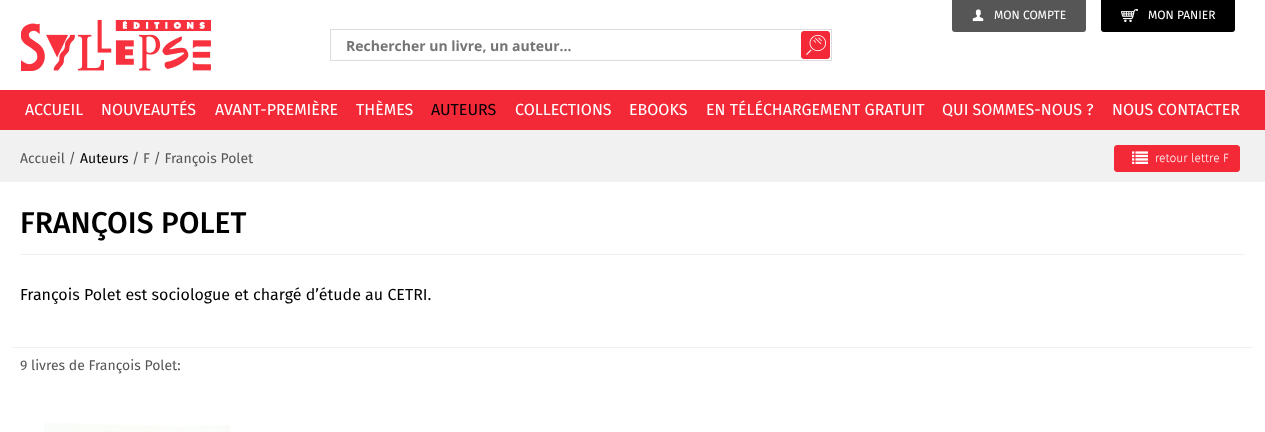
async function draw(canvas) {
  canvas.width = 1265;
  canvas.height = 432;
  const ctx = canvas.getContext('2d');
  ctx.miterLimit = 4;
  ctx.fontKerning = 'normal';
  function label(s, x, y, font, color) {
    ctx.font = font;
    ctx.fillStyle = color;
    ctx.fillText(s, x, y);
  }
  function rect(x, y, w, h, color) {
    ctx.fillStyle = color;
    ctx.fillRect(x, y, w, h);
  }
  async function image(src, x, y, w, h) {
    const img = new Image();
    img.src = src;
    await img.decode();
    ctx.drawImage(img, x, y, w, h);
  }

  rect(0, 0, 1265, 432, '#fff');
  ctx.fillStyle = '#565656';
  ctx.beginPath();
  ctx.roundRect(952, 0, 134, 32, [0, 0, 3, 3]);
  ctx.fill();
  await image('assets/img1.png', 972, 9, 12, 13);
  label('MON COMPTE', 994, 19, '12px Fira Sans', '#fff');
  ctx.fillStyle = '#000';
  ctx.beginPath();
  ctx.roundRect(1101, 0, 134, 32, [0, 0, 3, 3]);
  ctx.fill();
  await image('assets/img2.png', 1121, 9, 17, 13);
  label('MON PANIER', 1148, 19, '12px Fira Sans', '#fff');
  await image('assets/img3.png', 21, 20, 190, 51);
  ctx.strokeStyle = '#dcdcdc';
  ctx.strokeRect(330.5, 29.5, 501, 31);
  label('Rechercher un livre, un auteur...', 346, 51, 'bold 14px Open Sans', '#757575');
  await image('assets/img4.png', 801, 31, 29, 28);
  rect(0, 90, 1265, 40, '#f32938');
  label('ACCUEIL', 25, 115, '16px Fira Sans', '#fff');
  label('NOUVEAUTÉS', 101, 115, '16px Fira Sans', '#fff');
  label('AVANT-PREMIÈRE', 215, 115, '16px Fira Sans', '#fff');
  label('THÈMES', 356, 115, '16px Fira Sans', '#fff');
  label('AUTEURS', 431, 115, '16px Fira Sans', '#000');
  label('COLLECTIONS', 515, 115, '16px Fira Sans', '#fff');
  label('EBOOKS', 629, 115, '16px Fira Sans', '#fff');
  label('EN TÉLÉCHARGEMENT GRATUIT', 706, 115, '16px Fira Sans', '#fff');
  label('QUI SOMMES-NOUS ?', 942, 115, '16px Fira Sans', '#fff');
  label('NOUS CONTACTER', 1112, 115, '16px Fira Sans', '#fff');
  rect(0, 130, 1265, 52, '#f1f1f1');
  label('Accueil /', 20, 163, '14px Fira Sans', '#565656');
  label('Auteurs', 80, 163, '14px Fira Sans', '#000');
  label('/ F / François Polet', 132, 163, '14px Fira Sans', '#565656');
  ctx.fillStyle = '#f32938';
  ctx.beginPath();
  ctx.roundRect(1114.5, 145.5, 125, 26, 2.5);
  ctx.fill();
  ctx.strokeStyle = '#f32938';
  ctx.stroke();
  await image('assets/img5.png', 1132, 151, 16, 13);
  label('retour lettre F', 1155, 162, '300 12px Fira Sans', '#fff');
  rect(20, 254, 1225, 1, '#f1f1f1');
  label('FRANÇOIS POLET', 20, 233, '500 30px Fira Sans', '#000');
  label('François Polet est sociologue et chargé d’étude au CETRI.', 20, 300, '16px Fira Sans', '#000');
  rect(13, 347, 1240, 1, '#f1f1f1');
  label('9 livres de François Polet:', 20, 370, '14px Fira Sans', '#565656');
  await image('assets/img6.png', 44, 423, 186, 9);
}

draw(document.querySelector('canvas'));
